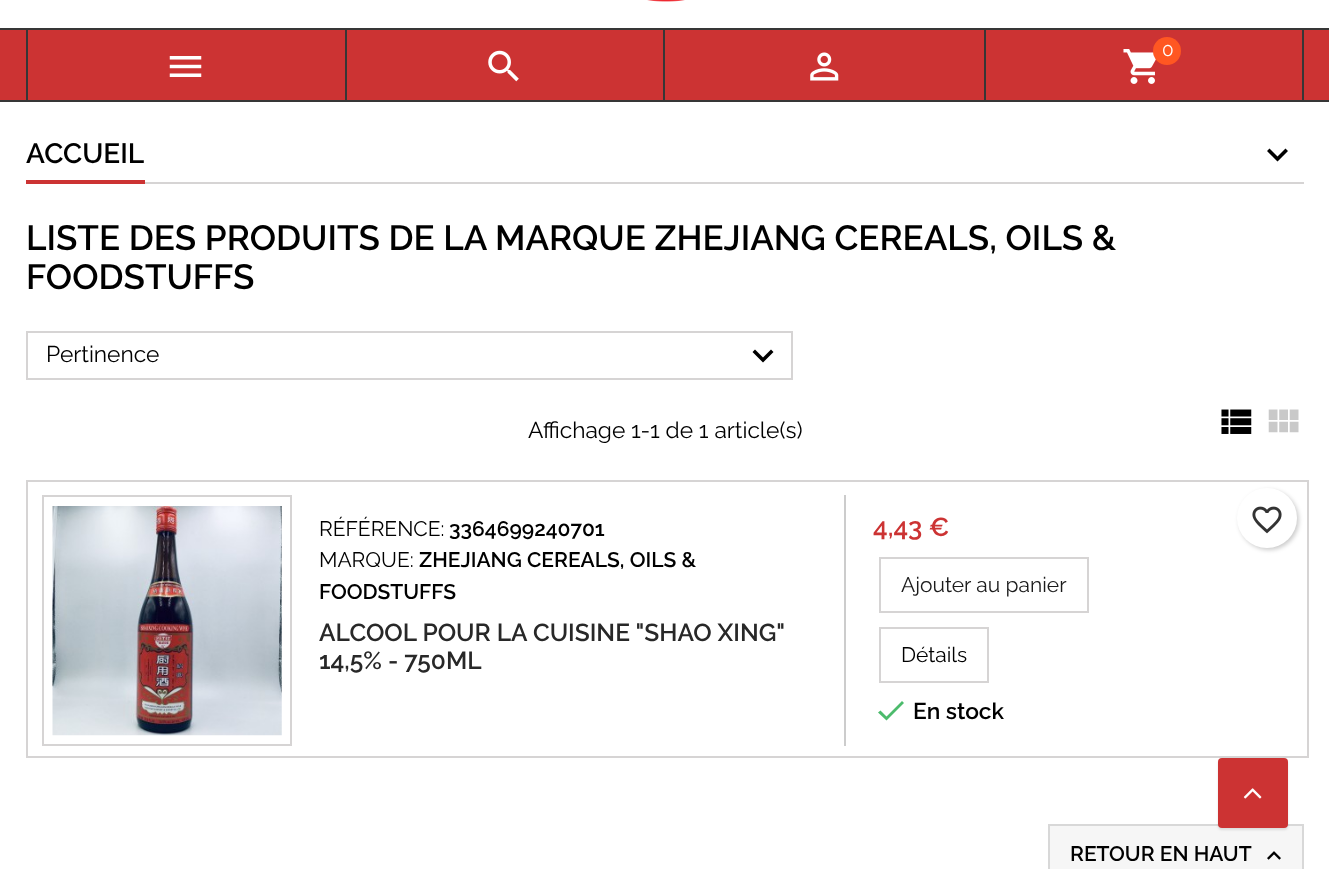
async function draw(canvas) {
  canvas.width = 1329;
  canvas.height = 869;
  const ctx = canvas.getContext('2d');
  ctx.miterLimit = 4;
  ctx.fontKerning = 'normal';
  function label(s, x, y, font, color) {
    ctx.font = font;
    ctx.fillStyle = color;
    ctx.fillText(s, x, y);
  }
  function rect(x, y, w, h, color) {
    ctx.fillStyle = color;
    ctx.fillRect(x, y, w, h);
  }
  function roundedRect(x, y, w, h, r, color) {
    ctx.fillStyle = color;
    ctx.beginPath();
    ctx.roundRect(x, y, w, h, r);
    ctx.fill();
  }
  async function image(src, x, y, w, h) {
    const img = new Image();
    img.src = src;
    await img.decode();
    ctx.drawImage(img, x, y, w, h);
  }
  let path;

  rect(0, 0, 1329, 869, '#fff');
  await image('assets/img1.png', 647, 0, 38, 2);
  rect(0, 30, 1329, 70, '#c33');
  rect(0, 28, 1329, 2, '#363636');
  rect(0, 100, 1329, 2, '#363636');
  rect(345, 30, 2, 70, '#363636');
  rect(26, 30, 2, 70, '#363636');
  await image('assets/img2.png', 169, 56, 33, 21);
  rect(663, 30, 2, 70, '#363636');
  await image('assets/img3.png', 488, 50, 31, 32);
  rect(984, 30, 2, 70, '#363636');
  await image('assets/img4.png', 810, 52, 29, 29);
  rect(1302, 30, 2, 70, '#363636');
  await image('assets/img5.png', 1123, 49, 33, 35);
  ctx.fillStyle = '#ff5722';
  ctx.beginPath();
  ctx.arc(1167, 51, 14, 0, 2 * Math.PI);
  ctx.fill();
  label('0', 1162, 56, '19px Raleway', '#fff');
  rect(145, 182, 1159, 2, '#d6d4d4');
  rect(26, 180, 119, 4, '#c33');
  label('ACCUEIL', 26, 163, '600 28px Raleway', '#000');
  path = new Path2D('M1269.5 148.5L1277.5 156.5L1285.5 148.5L1288 151L1277.5 161.5L1267 151Z');
  ctx.fill(path);
  label('LISTE DES PRODUITS DE LA MARQUE ZHEJIANG CEREALS, OILS &', 26, 250, '600 35px Raleway', '#000');
  label('FOODSTUFFS', 26, 289, '600 35px Raleway', '#000');
  ctx.strokeStyle = '#d6d4d4';
  ctx.lineWidth = 2;
  ctx.strokeRect(27, 332, 765, 47);
  label('Pertinence', 46, 362, '22.75px Raleway', '#000');
  path = new Path2D('M755 349.5L763 357.5L771 349.5L773.5 352L763 362.5L752.5 352Z');
  ctx.fill(path);
  label('Affichage 1-1 de 1 article(s)', 528, 438, '22.75px Raleway', '#000');
  await image('assets/img6.png', 1221, 409, 31, 25);
  await image('assets/img7.png', 1268, 409, 31, 24);
  ctx.strokeRect(27, 481, 1281, 276);
  ctx.strokeRect(43, 496, 248, 249);
  await image('assets/img8.png', 52, 506, 230, 230);
  label('RÉFÉRENCE:', 319, 536, '21px Raleway', '#000');
  label('3364699240701', 449, 536, '600 21px Raleway', '#000');
  label('MARQUE:', 319, 567, '21px Raleway', '#000');
  label('ZHEJIANG CEREALS, OILS &', 419, 567, '600 21px Raleway', '#000');
  label('FOODSTUFFS', 319, 599, '600 21px Raleway', '#000');
  label('ALCOOL POUR LA CUISINE "SHAO XING"', 319, 641, '600 24.5px Raleway', '#282828');
  label('14,5% - 750ML', 319, 669, '600 24.5px Raleway', '#282828');
  rect(844, 495, 2, 251, '#ccc');
  label('4,43 €', 873, 536, '600 26px Raleway', '#c33');
  ctx.strokeRect(880, 558, 208, 54);
  label('Ajouter au panier', 901, 592, '21px Raleway', '#1b1b1b');
  ctx.strokeRect(880, 628, 108, 54);
  label('Détails', 901, 662, '21px Raleway', '#000');
  ctx.fillStyle = '#4cbb6c';
  path = new Path2D('M886.5 716.5L902 701L904 703L886.5 720.5L878 712.5L880.5 710.5Z');
  ctx.fill(path);
  label('En stock', 913, 719, '600 22.75px Raleway', '#000');
  ctx.fillStyle = '#00000033';
  ctx.filter = 'blur(2px)';
  ctx.beginPath();
  ctx.roundRect(1239, 490, 60, 60, 30);
  ctx.fill();
  ctx.filter = 'none';
  ctx.fillStyle = '#fff';
  ctx.beginPath();
  ctx.arc(1267, 518, 30, 0, 2 * Math.PI);
  ctx.fill();
  await image('assets/img9.png', 1252, 506, 30, 28);
  ctx.fillStyle = '#f6f6f6';
  ctx.beginPath();
  ctx.rect(1049, 825, 254, 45);
  ctx.fill();
  ctx.strokeStyle = '#d8d8d8';
  ctx.stroke();
  label('RETOUR EN HAUT', 1070, 861, '600 21px Raleway', '#000');
  await image('assets/img10.png', 1267, 851, 14, 9);
  ctx.fillStyle = '#0000001a';
  ctx.filter = 'blur(1px)';
  ctx.beginPath();
  ctx.roundRect(1218, 760, 70, 70, 4);
  ctx.fill();
  ctx.filter = 'none';
  roundedRect(1218, 758, 70, 70, 4, '#c33');
  await image('assets/img11.png', 1243, 788, 19, 11);
}

draw(document.querySelector('canvas'));
